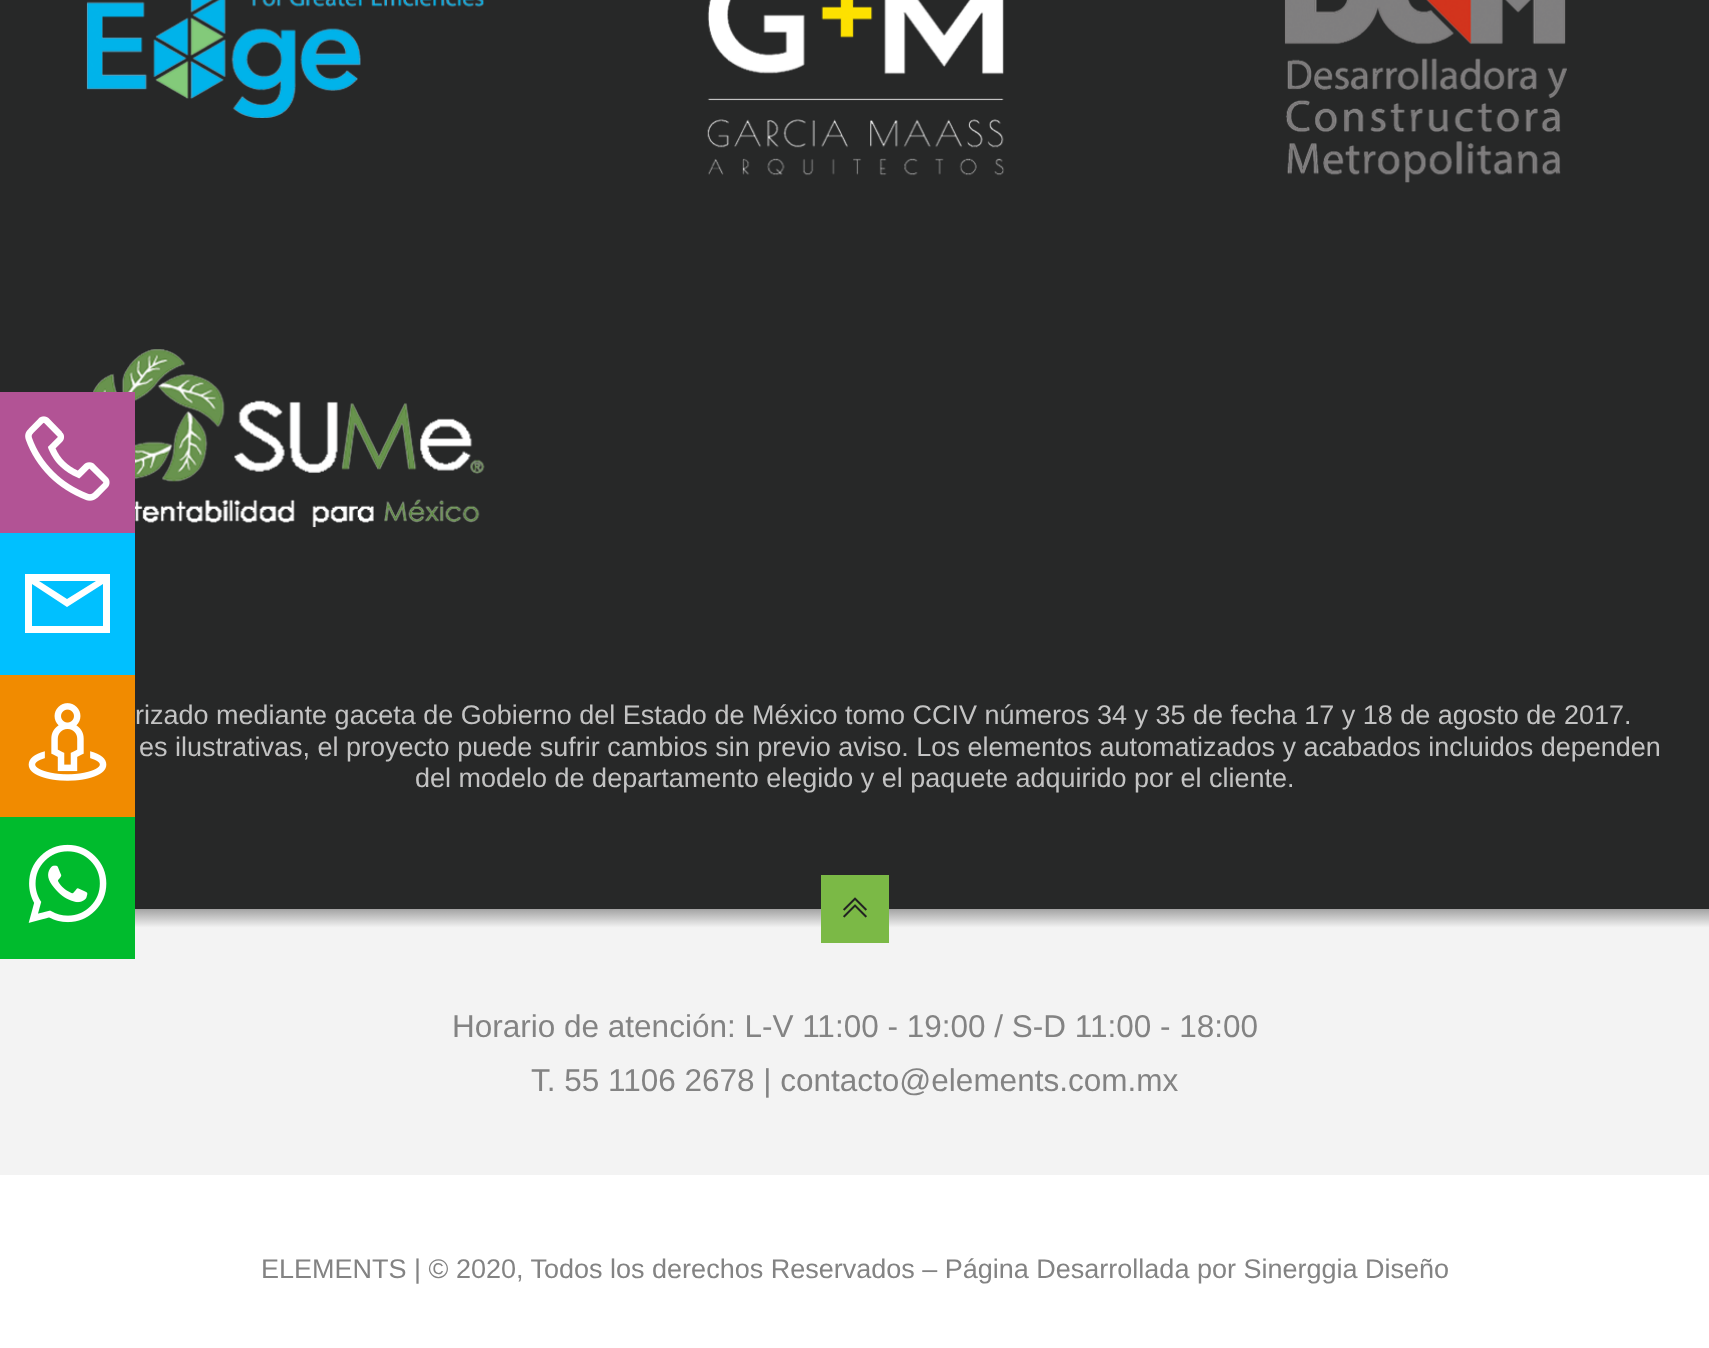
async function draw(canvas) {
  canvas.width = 1709;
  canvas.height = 1348;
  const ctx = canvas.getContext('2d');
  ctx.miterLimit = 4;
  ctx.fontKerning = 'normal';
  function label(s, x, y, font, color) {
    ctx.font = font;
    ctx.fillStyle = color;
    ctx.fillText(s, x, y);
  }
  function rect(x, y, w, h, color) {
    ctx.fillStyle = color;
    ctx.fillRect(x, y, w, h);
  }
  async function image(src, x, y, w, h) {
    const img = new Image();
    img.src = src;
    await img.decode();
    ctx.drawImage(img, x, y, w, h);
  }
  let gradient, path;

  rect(0, 0, 1709, 1348, '#fff');
  rect(0, 0, 1709, 909, '#272828');
  await image('assets/img7.png', 93, 349, 392, 179);
  rect(0, 392, 135, 141, '#b25395');
  await image('assets/img1.png', 25, 416, 85, 85);
  rect(0, 533, 135, 142, '#00c0ff');
  ctx.fillStyle = '#fff';
  path = new Path2D('M25 574H110V633H25ZM39 581L67 599L96 581ZM32 584V626H103V584L67 607Z');
  ctx.fill(path);
  rect(0, 675, 135, 142, '#f18b00');
  await image('assets/img2.png', 28, 703, 79, 78);
  gradient = ctx.createLinearGradient(855, 909, 855, 1175);
  gradient.addColorStop(0, '#a3a3a3');
  gradient.addColorStop(0.07, '#f3f3f3');
  gradient.addColorStop(1, '#f3f3f3');
  ctx.fillStyle = gradient;
  ctx.fillRect(0, 909, 1709, 266);
  rect(0, 817, 135, 142, '#00bb2d');
  await image('assets/img3.png', 28, 844, 79, 79);
  await image('assets/img4.png', 86, 0, 398, 118);
  await image('assets/img5.png', 707, 0, 298, 176);
  await image('assets/img6.png', 1284, 0, 283, 183);
  label('rizado mediante gaceta de Gobierno del Estado de México tomo CCIV números 34 y 35 de fecha 17 y 18 de agosto de 2017.', 135, 724, '27px Arimo', '#c3c3c3');
  label('es ilustrativas, el proyecto puede sufrir cambios sin previo aviso. Los elementos automatizados y acabados incluidos dependen', 139, 756, '27px Arimo', '#c3c3c3');
  label('del modelo de departamento elegido y el paquete adquirido por el cliente.', 415, 787, '27px Arimo', '#c3c3c3');
  rect(821, 875, 68, 68, '#7bb946');
  await image('assets/img8.png', 843, 897, 24, 21);
  label('Horario de atención: L-V 11:00 - 19:00 / S-D 11:00 - 18:00', 452, 1037, '31.5px Arimo', '#838383');
  label('T. 55 1106 2678 | contacto@elements.com.mx', 531, 1091, '31.5px Arimo', '#838383');
  label('ELEMENTS | © 2020, Todos los derechos Reservados – Página Desarrollada por Sinerggia Diseño', 261, 1278, '27px Arimo', '#838383');
}

draw(document.querySelector('canvas'));
